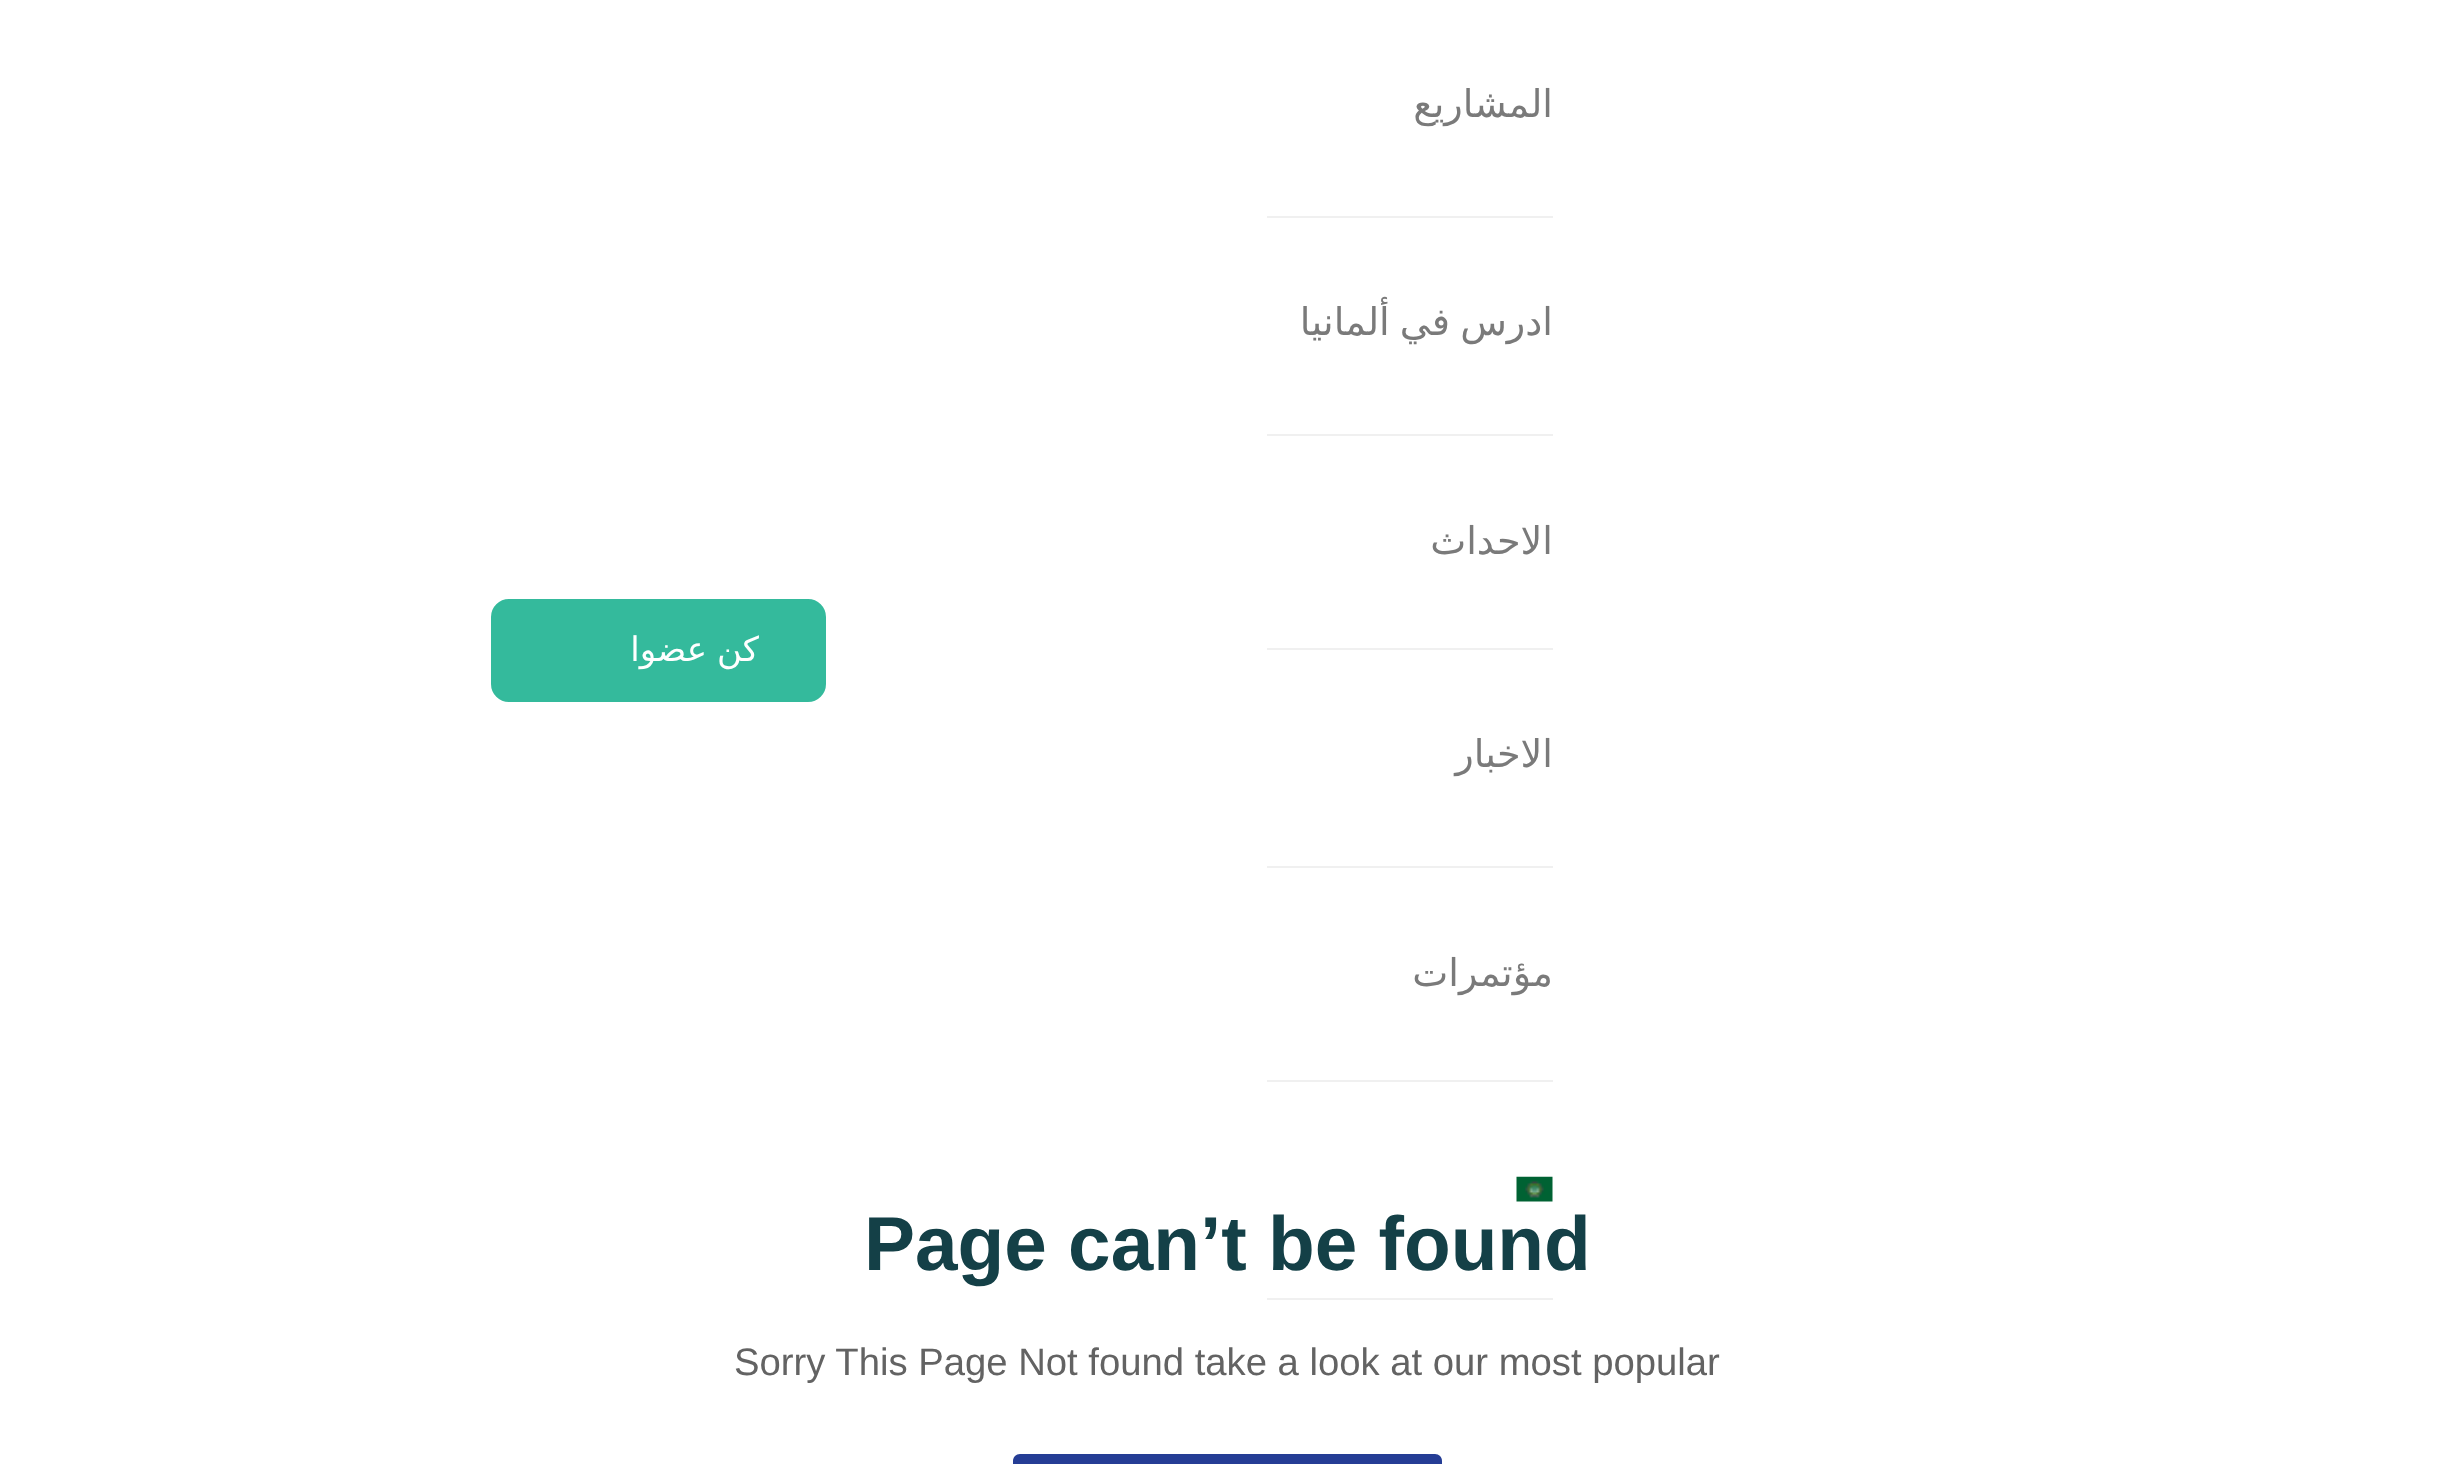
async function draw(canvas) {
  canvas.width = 2453;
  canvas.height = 1464;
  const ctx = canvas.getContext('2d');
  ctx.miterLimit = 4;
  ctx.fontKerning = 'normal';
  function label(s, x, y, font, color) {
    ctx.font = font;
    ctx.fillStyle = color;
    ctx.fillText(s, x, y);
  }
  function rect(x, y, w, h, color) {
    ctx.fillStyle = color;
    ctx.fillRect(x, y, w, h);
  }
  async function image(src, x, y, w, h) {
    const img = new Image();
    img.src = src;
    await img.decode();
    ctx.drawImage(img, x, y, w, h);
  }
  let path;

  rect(0, 0, 2453, 1464, '#fff');
  ctx.fillStyle = '#34ba9c';
  ctx.beginPath();
  ctx.roundRect(492, 600, 333, 101, 17);
  ctx.fill();
  ctx.strokeStyle = '#34ba9c';
  ctx.lineWidth = 2;
  ctx.stroke();
  ctx.wordSpacing = '-1px';
  ctx.direction = 'rtl';
  label('كن عضوا', 759, 661, '34px DejaVu Sans', '#fff');
  rect(1267, 216, 286, 2, '#f0f0f0');
  ctx.wordSpacing = '0px';
  label('المشاريع', 1553, 117, '38.25px DejaVu Sans', '#7a7a7a');
  rect(1267, 434, 286, 2, '#f0f0f0');
  ctx.wordSpacing = '-2px';
  label('ادرس في ألمانيا', 1553, 335, '38.25px DejaVu Sans', '#7a7a7a');
  rect(1267, 648, 286, 2, '#f0f0f0');
  ctx.wordSpacing = '0px';
  label('الاحداث', 1553, 554, '38.25px DejaVu Sans', '#7a7a7a');
  rect(1267, 866, 286, 2, '#f0f0f0');
  label('الاخبار', 1553, 767, '38.25px DejaVu Sans', '#7a7a7a');
  rect(1267, 1080, 286, 2, '#f0f0f0');
  label('مؤتمرات', 1553, 986, '38.25px DejaVu Sans', '#7a7a7a');
  rect(1267, 1298, 286, 2, '#f0f0f0');
  await image('assets/img1.png', 1516, 1176, 37, 26);
  ctx.direction = 'ltr';
  label('Page can’t be found', 864, 1270, 'bold 76.5px Liberation Sans', '#144047');
  label('Sorry This Page Not found take a look at our most popular', 734, 1375, '38.25px Liberation Sans', '#636363');
  ctx.fillStyle = '#253d95';
  path = new Path2D('M1020 1454H1435C1439 1454 1442 1457 1442 1461V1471H1013V1461C1013 1457 1016 1454 1020 1454Z');
  ctx.fill(path);
}

draw(document.querySelector('canvas'));
